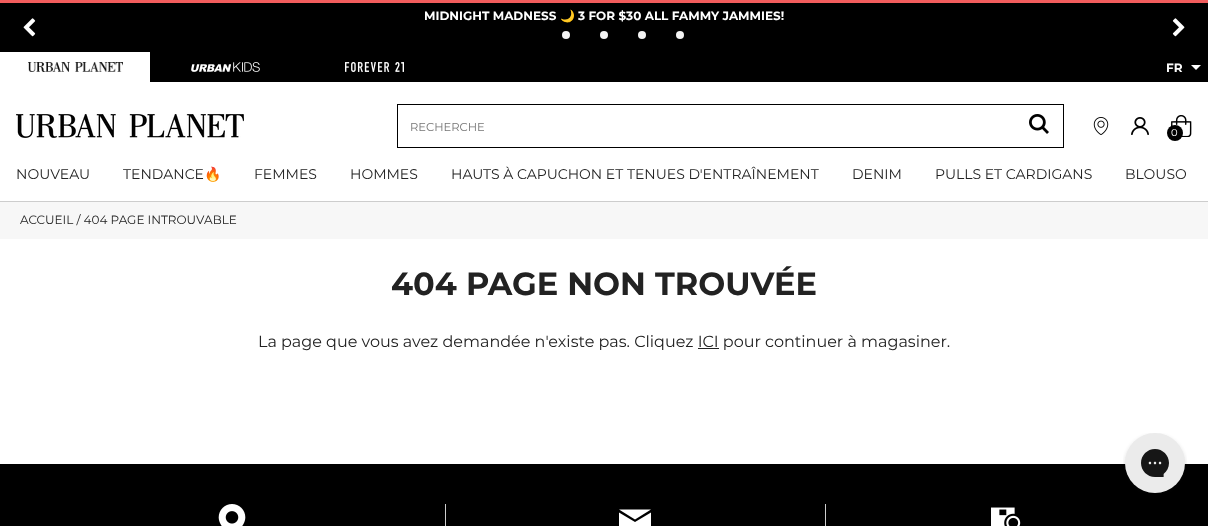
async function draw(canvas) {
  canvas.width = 1208;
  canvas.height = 526;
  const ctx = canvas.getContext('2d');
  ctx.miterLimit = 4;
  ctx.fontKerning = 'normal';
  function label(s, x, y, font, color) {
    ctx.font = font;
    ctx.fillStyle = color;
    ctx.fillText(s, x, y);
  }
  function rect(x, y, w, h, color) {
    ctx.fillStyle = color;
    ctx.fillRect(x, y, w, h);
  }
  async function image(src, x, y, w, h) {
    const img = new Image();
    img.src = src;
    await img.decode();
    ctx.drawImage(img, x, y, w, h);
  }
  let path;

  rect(0, 0, 1208, 526, '#fff');
  rect(0, 0, 1208, 3, '#f25d5d');
  rect(0, 3, 1208, 49, '#000');
  label('MIDNIGHT MADNESS', 424, 20, 'bold 12px Montserrat', '#fff');
  label('🌙', 560, 20, 'bold 12px Noto Color Emoji', '#fff');
  label('3 FOR $30 ALL FAMMY JAMMIES!', 578, 20, 'bold 12px Montserrat', '#fff');
  await image('assets/img1.png', 23, 18, 13, 19);
  await image('assets/img2.png', 1172, 18, 13, 19);
  ctx.fillStyle = '#f3f3f3';
  ctx.beginPath();
  ctx.arc(566, 35, 4, 0, 2 * Math.PI);
  ctx.fill();
  ctx.beginPath();
  ctx.arc(604, 35, 4, 0, 2 * Math.PI);
  ctx.fill();
  ctx.beginPath();
  ctx.arc(642, 35, 4, 0, 2 * Math.PI);
  ctx.fill();
  ctx.beginPath();
  ctx.arc(680, 35, 4, 0, 2 * Math.PI);
  ctx.fill();
  rect(150, 52, 1058, 30, '#000');
  await image('assets/img3.png', 28, 62, 95, 10);
  await image('assets/img4.png', 191, 62, 69, 10);
  await image('assets/img5.png', 345, 62, 59, 10);
  ctx.fillStyle = '#fff';
  path = new Path2D('M1191 65L1196 70L1201 65Z');
  ctx.fill(path);
  label('FR', 1166, 72, 'bold 12px Montserrat', '#f9f9f9');
  rect(0, 201, 1208, 1, '#cdcdcd');
  await image('assets/img6.png', 16, 114, 228, 24);
  ctx.strokeStyle = '#000';
  ctx.strokeRect(397.5, 104.5, 666, 43);
  label('RECHERCHE', 410, 131, '11.5px Montserrat', '#757575');
  await image('assets/img7.png', 1029, 114, 20, 20);
  await image('assets/img8.png', 1093, 117, 16, 18);
  await image('assets/img9.png', 1131, 117, 18, 18);
  await image('assets/img10.png', 1171, 115, 21, 22);
  ctx.fillStyle = '#000';
  ctx.beginPath();
  ctx.arc(1175, 133, 8, 0, 2 * Math.PI);
  ctx.fill();
  label('0', 1171, 136, '10px Montserrat', '#fff');
  label('NOUVEAU', 16, 179, '14px Montserrat', '#222');
  label('TENDANCE', 123, 179, '14px Montserrat', '#222');
  label('🔥', 204, 179, '14px Noto Color Emoji', '#222');
  label('FEMMES', 254, 179, '14px Montserrat', '#222');
  label('HOMMES', 350, 179, '14px Montserrat', '#222');
  label('HAUTS À CAPUCHON ET TENUES D\'ENTRAÎNEMENT', 451, 179, '14px Montserrat', '#222');
  label('DENIM', 852, 179, '14px Montserrat', '#222');
  label('PULLS ET CARDIGANS', 935, 179, '14px Montserrat', '#222');
  label('BLOUSO', 1125, 179, '14px Montserrat', '#222');
  rect(0, 202, 1208, 37, '#f7f7f7');
  label('ACCUEIL / 404 PAGE INTROUVABLE', 20, 224, '12px Montserrat', '#222');
  label('404 PAGE NON TROUVÉE', 391, 295, 'bold 32px Montserrat', '#222');
  label('La page que vous avez demandée n\'existe pas. Cliquez ICI pour continuer à magasiner.', 258, 347, '16px Montserrat', '#222');
  rect(698, 348, 21, 1, '#222');
  rect(0, 464, 1208, 62, '#000');
  await image('assets/img11.png', 1123, 433, 64, 60);
  await image('assets/img12.png', 218, 504, 28, 22);
  rect(445, 504, 1, 22, '#cdcdcd');
  ctx.fillStyle = '#fff';
  path = new Path2D('M651 512.5V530.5H619V512.5L635 522ZM651 509.5L635 519.5L619 509.5Z');
  ctx.fill(path);
  rect(825, 504, 1, 22, '#cdcdcd');
  await image('assets/img13.png', 991, 507, 30, 19);
}

draw(document.querySelector('canvas'));
